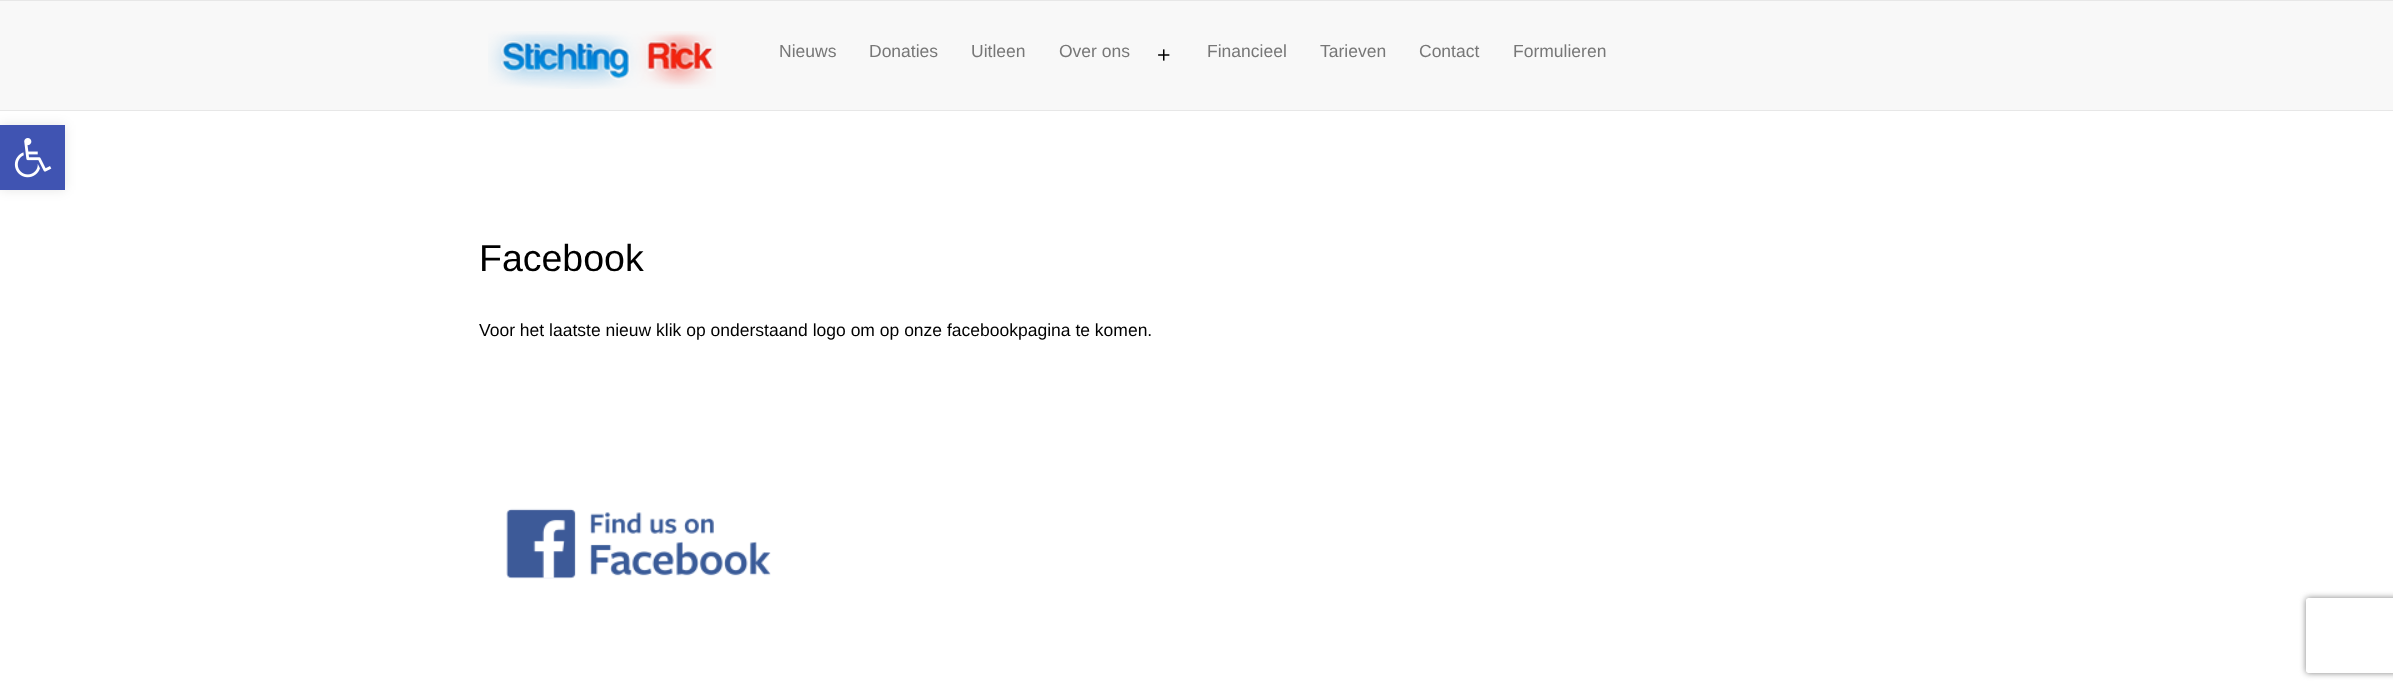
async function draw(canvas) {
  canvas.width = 2393;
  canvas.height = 689;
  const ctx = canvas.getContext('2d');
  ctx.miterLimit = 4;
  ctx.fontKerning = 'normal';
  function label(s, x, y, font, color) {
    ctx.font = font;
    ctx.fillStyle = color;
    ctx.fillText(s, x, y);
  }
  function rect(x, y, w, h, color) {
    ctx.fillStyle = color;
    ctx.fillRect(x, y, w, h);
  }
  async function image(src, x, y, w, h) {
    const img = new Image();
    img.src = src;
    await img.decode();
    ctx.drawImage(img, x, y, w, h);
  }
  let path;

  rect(0, 0, 2393, 689, '#fff');
  rect(0, 1, 2393, 109, '#f8f8f8');
  rect(0, 110, 2393, 1, '#e7e7e7');
  ctx.fillStyle = '#0000001a';
  ctx.filter = 'blur(6px)';
  ctx.beginPath();
  ctx.rect(0, 125, 65, 65);
  ctx.fill();
  ctx.filter = 'none';
  rect(0, 125, 65, 65, '#4054b2');
  await image('assets/img1.png', 14, 138, 38, 40);
  rect(0, 0, 2393, 1, '#e7e7e7');
  await image('assets/img2.png', 488, 31, 228, 58);
  label('Nieuws', 779, 57, '17.5px Liberation Sans', '#777');
  label('Donaties', 869, 57, '17.5px Liberation Sans', '#777');
  label('Uitleen', 971, 57, '17.5px Liberation Sans', '#777');
  label('Over ons', 1059, 57, '17.5px Liberation Sans', '#777');
  await image('assets/img3.png', 1158, 49, 12, 12);
  label('Financieel', 1207, 57, '17.5px Liberation Sans', '#777');
  label('Tarieven', 1320, 57, '17.5px Liberation Sans', '#777');
  label('Contact', 1419, 57, '17.5px Liberation Sans', '#777');
  label('Formulieren', 1513, 57, '17.5px Liberation Sans', '#777');
  label('Facebook', 479, 271, '37.5px Liberation Sans', '#000');
  label('Voor het laatste nieuw klik op onderstaand logo om op onze facebookpagina te komen.', 479, 336, '17.5px Liberation Sans', '#000');
  await image('assets/img4.png', 506, 508, 265, 71);
  ctx.save();
  path = new Path2D('M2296 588H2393V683H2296ZM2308.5 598H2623.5C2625 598 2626 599 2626 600.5V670.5C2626 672 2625 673 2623.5 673H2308.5C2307 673 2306 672 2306 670.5V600.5C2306 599 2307 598 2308.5 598Z');
  ctx.clip(path, 'evenodd');
  ctx.fillStyle = '#808080';
  ctx.filter = 'blur(3px)';
  ctx.beginPath();
  ctx.roundRect(2306, 598, 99, 75, 2.5);
  ctx.fill();
  ctx.filter = 'none';
  ctx.restore();
}

draw(document.querySelector('canvas'));
